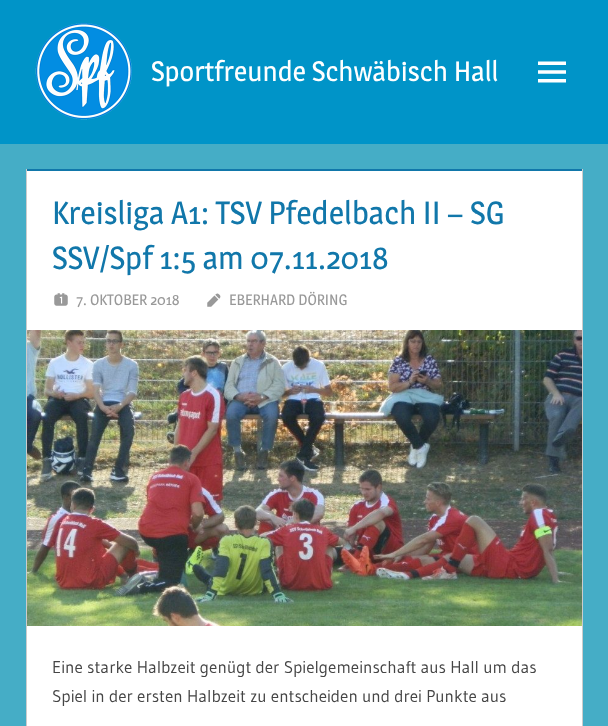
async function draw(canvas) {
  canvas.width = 608;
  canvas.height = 726;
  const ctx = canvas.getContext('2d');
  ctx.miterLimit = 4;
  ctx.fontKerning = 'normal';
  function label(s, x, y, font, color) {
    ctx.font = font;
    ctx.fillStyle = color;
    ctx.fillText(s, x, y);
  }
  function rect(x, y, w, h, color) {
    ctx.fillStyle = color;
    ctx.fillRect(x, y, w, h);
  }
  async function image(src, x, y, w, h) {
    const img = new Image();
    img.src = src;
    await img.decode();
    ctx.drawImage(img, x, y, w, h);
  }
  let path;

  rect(0, 0, 608, 726, '#45adc6');
  rect(0, 0, 608, 144, '#0094c8');
  await image('assets/img1.png', 35, 23, 97, 97);
  label('Sportfreunde Schwäbisch Hall', 151, 81, '28px Magra', '#fff');
  await image('assets/img2.png', 538, 61, 28, 22);
  rect(27, 171, 555, 555, '#fff');
  rect(27, 169, 555, 2, '#17a');
  ctx.fillStyle = '#ccc';
  path = new Path2D('M583 169V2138L582 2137V169Z');
  ctx.fill(path);
  path = new Path2D('M26 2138V169H27V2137Z');
  ctx.fill(path);
  label('Kreisliga A1: TSV Pfedelbach II – SG', 52, 224, '32px Magra', '#17a');
  label('SSV/Spf 1:5 am 07.11.2018', 52, 269, '32px Magra', '#17a');
  await image('assets/img3.png', 54, 293, 14, 13);
  label('7. OKTOBER 2018', 76, 305, '15px Magra', '#999');
  await image('assets/img4.png', 207, 293, 14, 14);
  label('EBERHARD DÖRING', 229, 305, '15px Magra', '#999');
  await image('assets/img5.png', 27, 330, 555, 296);
  label('Eine starke Halbzeit genügt der Spielgemeinschaft aus Hall um das', 52, 673, '17px Gudea', '#454545');
  label('Spiel in der ersten Halbzeit zu entscheiden und drei Punkte aus', 52, 702, '17px Gudea', '#454545');
}

draw(document.querySelector('canvas'));
